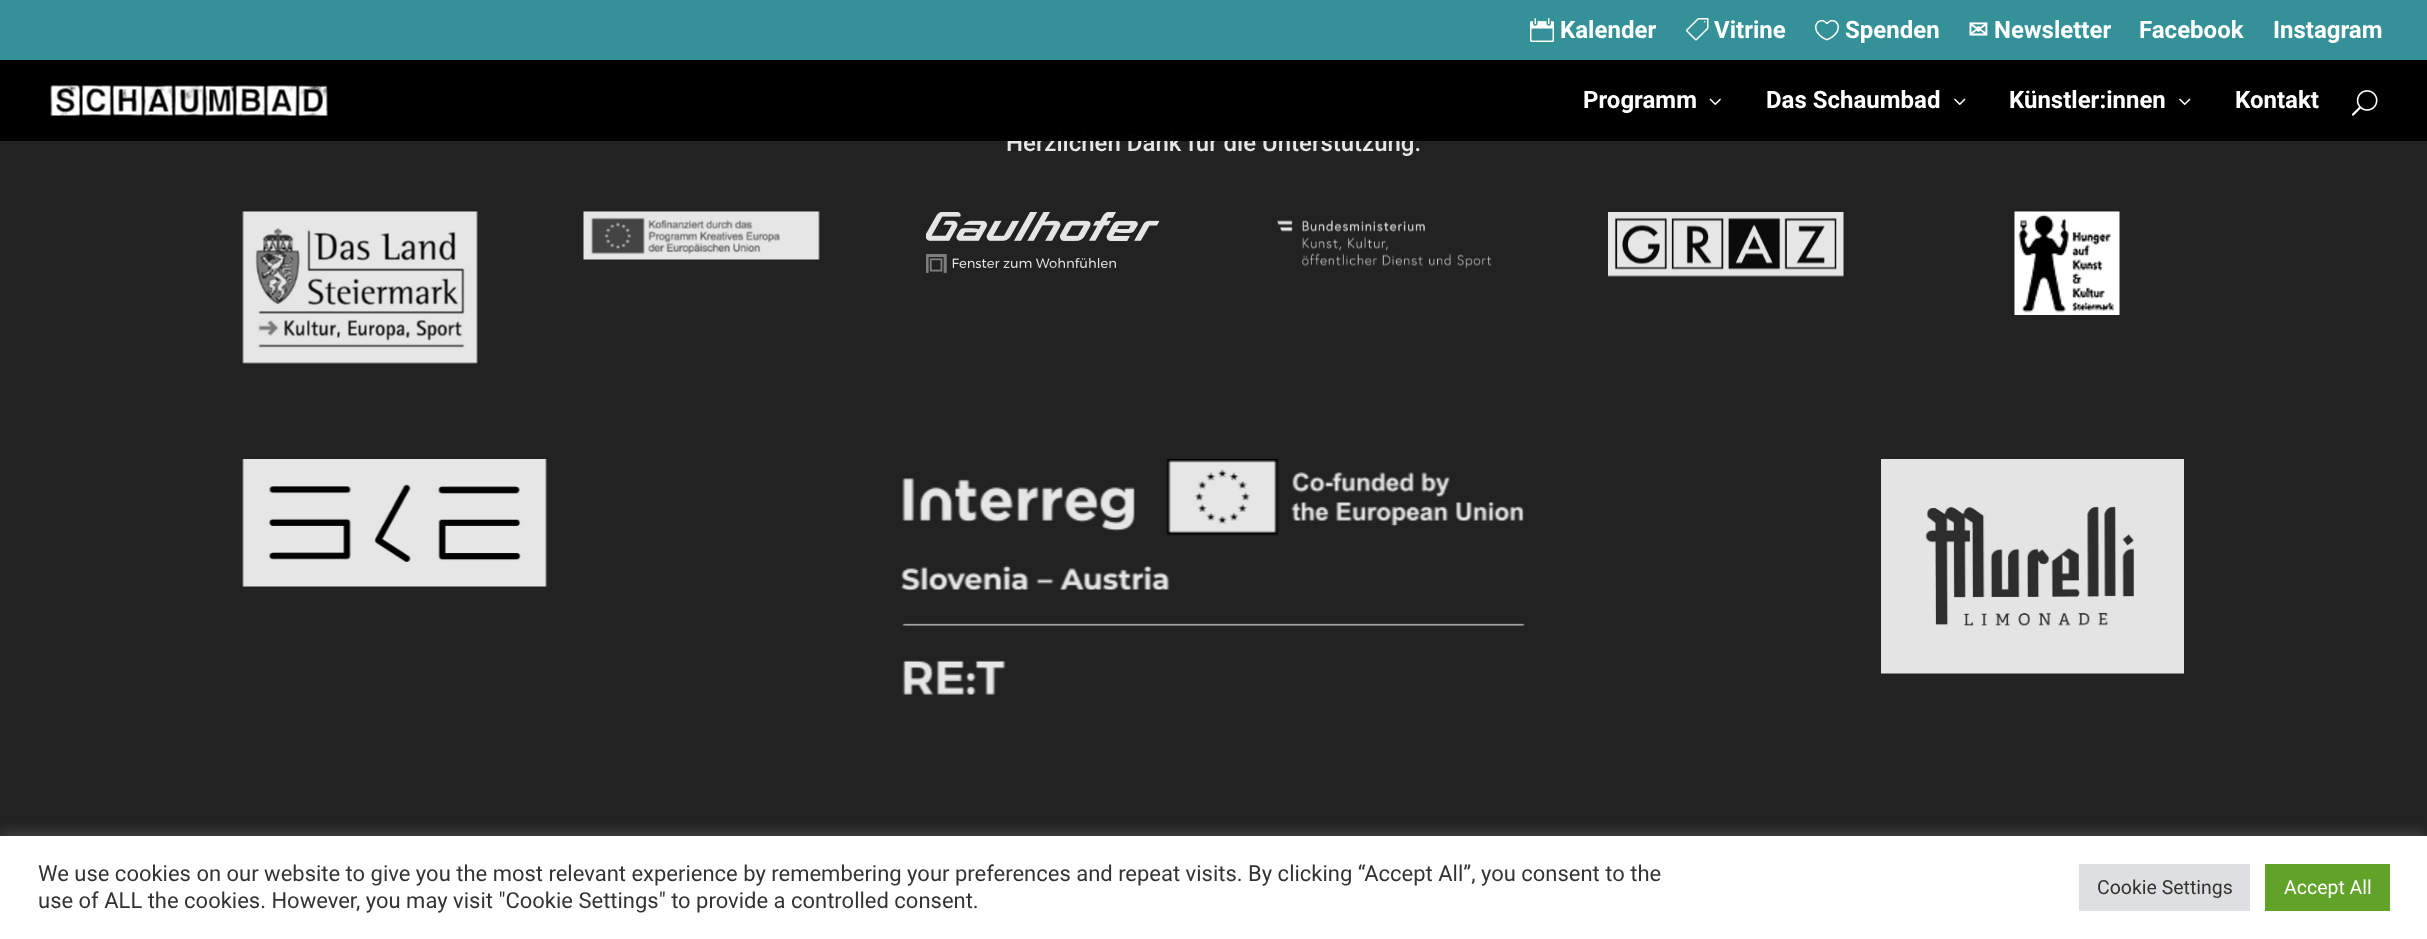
async function draw(canvas) {
  canvas.width = 2427;
  canvas.height = 939;
  const ctx = canvas.getContext('2d');
  ctx.miterLimit = 4;
  ctx.fontKerning = 'normal';
  function label(s, x, y, font, color) {
    ctx.font = font;
    ctx.fillStyle = color;
    ctx.fillText(s, x, y);
  }
  function rect(x, y, w, h, color) {
    ctx.fillStyle = color;
    ctx.fillRect(x, y, w, h);
  }
  async function image(src, x, y, w, h) {
    const img = new Image();
    img.src = src;
    await img.decode();
    ctx.drawImage(img, x, y, w, h);
  }

  rect(0, 0, 2427, 939, '#222');
  rect(0, 0, 2427, 60, '#349197');
  await image('assets/img1.png', 1530, 18, 24, 24);
  label('Kalender', 1560, 38, 'bold 24px Roboto', '#fff');
  await image('assets/img2.png', 1686, 18, 23, 23);
  label('Vitrine', 1714, 38, 'bold 24px Roboto', '#fff');
  await image('assets/img3.png', 1815, 19, 24, 22);
  label('Spenden', 1845, 38, 'bold 24px Roboto', '#fff');
  label('✉', 1968, 38, 'bold 24px DejaVu Sans', '#fff');
  label('Newsletter', 1994, 38, 'bold 24px Roboto', '#fff');
  label('Facebook', 2139, 38, 'bold 24px Roboto', '#fff');
  label('Instagram', 2273, 38, 'bold 24px Roboto', '#fff');
  label('Herzlichen Dank für die Unterstützung:', 1006, 151, '500 24px Roboto', '#e6e6e6');
  rect(0, 60, 2427, 81, '#000000fc');
  await image('assets/img4.png', 50, 85, 278, 31);
  label('Programm', 1583, 108, 'bold 24px Roboto', '#fff');
  await image('assets/img5.png', 1709, 98, 12, 7);
  label('Das Schaumbad', 1766, 108, 'bold 24px Roboto', '#fff');
  await image('assets/img6.png', 1954, 98, 12, 7);
  label('Künstler:innen', 2009, 108, 'bold 24px Roboto', '#fff');
  await image('assets/img6.png', 2179, 98, 12, 7);
  label('Kontakt', 2235, 108, 'bold 24px Roboto', '#fff');
  await image('assets/img7.png', 2351, 90, 27, 26);
  await image('assets/img8.png', 242, 211, 236, 153);
  await image('assets/img9.png', 583, 211, 237, 49);
  await image('assets/img10.png', 926, 212, 234, 61);
  await image('assets/img11.png', 1277, 220, 215, 49);
  await image('assets/img12.png', 1608, 212, 236, 65);
  await image('assets/img13.png', 2014, 211, 106, 104);
  await image('assets/img14.png', 242, 459, 305, 128);
  await image('assets/img15.png', 901, 459, 624, 236);
  await image('assets/img16.png', 1881, 459, 303, 215);
  ctx.fillStyle = '#acabab4d';
  ctx.filter = 'blur(7.5px)';
  ctx.beginPath();
  ctx.rect(0, 834, 2427, 104);
  ctx.fill();
  ctx.filter = 'none';
  rect(0, 836, 2427, 103, '#fff');
  label('We use cookies on our website to give you the most relevant experience by remembering your preferences and repeat visits. By clicking “Accept All”, you consent to the', 38, 881, '22px Roboto', '#333');
  label('use of ALL the cookies. However, you may visit "Cookie Settings" to provide a controlled consent.', 38, 908, '22px Roboto', '#333');
  rect(2079, 864, 171, 47, '#dedfe0');
  label('Cookie Settings', 2097, 894, '19.5px Roboto', '#333');
  rect(2265, 864, 125, 47, '#61a229');
  label('Accept All', 2284, 894, '19.5px Roboto', '#fff');
}

draw(document.querySelector('canvas'));
